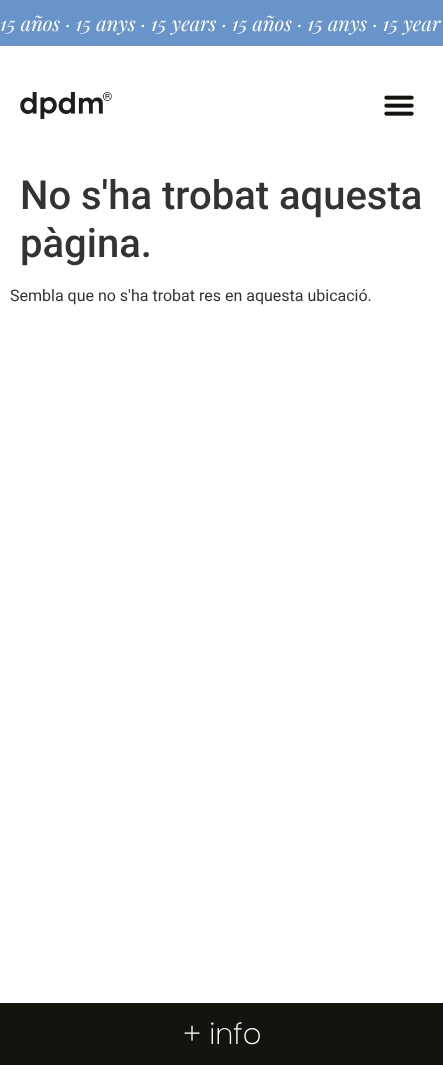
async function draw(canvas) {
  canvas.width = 443;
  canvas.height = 1065;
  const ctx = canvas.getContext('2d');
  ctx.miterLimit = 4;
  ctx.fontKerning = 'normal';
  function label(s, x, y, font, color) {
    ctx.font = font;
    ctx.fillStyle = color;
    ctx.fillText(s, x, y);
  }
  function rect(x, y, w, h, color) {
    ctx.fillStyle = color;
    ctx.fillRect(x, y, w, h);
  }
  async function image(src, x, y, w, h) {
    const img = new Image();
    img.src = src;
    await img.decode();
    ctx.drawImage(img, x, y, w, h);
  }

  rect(0, 0, 443, 1065, '#fff');
  rect(0, 0, 443, 46, '#6994c9');
  label('15 años · 15 anys · 15 years · 15 años · 15 anys · 15 year', 0, 31, 'italic 20px Playfair Display', '#fff');
  await image('assets/img1.png', 20, 92, 92, 27);
  await image('assets/img2.png', 384, 95, 30, 21);
  label('No s\'ha trobat aquesta', 20, 209, '500 40px Roboto', '#333');
  label('pàgina.', 20, 257, '500 40px Roboto', '#333');
  label('Sembla que no s\'ha trobat res en aquesta ubicació.', 10, 301, '16px Roboto', '#333');
  rect(0, 1003, 443, 62, '#14130e');
  label('+ info', 183, 1044, '200 29px Poppins', '#fff');
}

draw(document.querySelector('canvas'));
